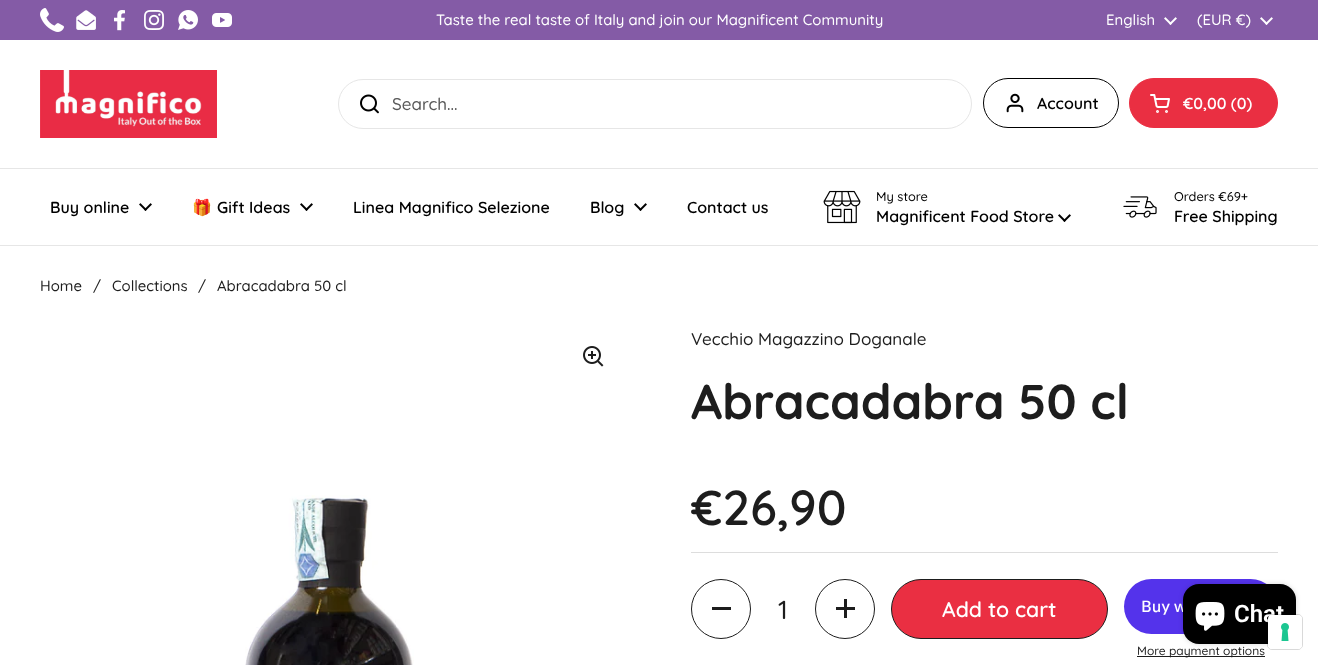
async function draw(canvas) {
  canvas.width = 1318;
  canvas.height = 665;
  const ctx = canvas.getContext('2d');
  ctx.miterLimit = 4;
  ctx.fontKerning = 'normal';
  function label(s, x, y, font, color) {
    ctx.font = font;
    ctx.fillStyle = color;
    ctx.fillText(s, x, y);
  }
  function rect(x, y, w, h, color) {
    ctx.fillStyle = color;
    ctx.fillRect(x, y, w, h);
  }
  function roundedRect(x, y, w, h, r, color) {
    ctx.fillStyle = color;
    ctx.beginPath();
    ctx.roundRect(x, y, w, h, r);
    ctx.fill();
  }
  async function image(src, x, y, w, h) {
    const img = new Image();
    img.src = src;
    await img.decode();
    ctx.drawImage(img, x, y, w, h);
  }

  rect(0, 0, 1318, 665, '#fff');
  rect(0, 0, 1318, 40, '#845ba6');
  await image('assets/img1.png', 40, 8, 24, 24);
  await image('assets/img2.png', 76, 10, 20, 20);
  await image('assets/img3.png', 114, 10, 11, 21);
  await image('assets/img4.png', 144, 10, 20, 20);
  await image('assets/img5.png', 178, 10, 20, 20);
  await image('assets/img6.png', 212, 13, 20, 14);
  label('Taste the real taste of Italy and join our Magnificent Community', 436, 25, '500 14.9px Quicksand', '#fff');
  label('English', 1106, 25, '500 14.9px Quicksand', '#fff');
  await image('assets/img7.png', 1164, 17, 13, 8);
  label('(EUR €)', 1197, 25, '500 14.9px Quicksand', '#fff');
  await image('assets/img7.png', 1260, 17, 13, 8);
  rect(0, 168, 1318, 1, '#e6e6e6');
  await image('assets/img8.png', 40, 70, 177, 68);
  ctx.beginPath();
  ctx.roundRect(338.5, 79.5, 633, 49, 24.5);
  ctx.strokeStyle = '#e6e6e6';
  ctx.stroke();
  await image('assets/img9.png', 360, 94, 19, 20);
  label('Search...', 392, 110, '500 17px Quicksand', '#575757');
  ctx.beginPath();
  ctx.roundRect(983.5, 78.5, 135, 49, 24.5);
  ctx.strokeStyle = '#000';
  ctx.stroke();
  await image('assets/img10.png', 1006, 93, 18, 20);
  label('Account', 1037, 109, '600 16px Quicksand', '#000');
  ctx.fillStyle = '#ea2f42';
  ctx.beginPath();
  ctx.roundRect(1129.5, 78.5, 148, 49, 24.5);
  ctx.fill();
  ctx.strokeStyle = '#ea2f42';
  ctx.stroke();
  await image('assets/img11.png', 1150, 94, 20, 19);
  label('€0,00 (0)', 1183, 109, '600 16px Quicksand', '#fff');
  rect(0, 245, 1318, 1, '#e6e6e6');
  label('Buy online', 50, 213, '600 16px Quicksand', '#000');
  await image('assets/img12.png', 139, 203, 13, 8);
  label('🎁', 192, 213, 'bold 16px Noto Color Emoji', '#000');
  label('Gift Ideas', 217, 213, '600 16px Quicksand', '#000');
  await image('assets/img12.png', 300, 203, 13, 8);
  label('Linea Magnifico Selezione', 353, 213, '600 16px Quicksand', '#000');
  label('Blog', 590, 213, '600 16px Quicksand', '#000');
  await image('assets/img12.png', 634, 203, 13, 8);
  label('Contact us', 687, 213, '600 16px Quicksand', '#000');
  await image('assets/img13.png', 823, 190, 38, 34);
  label('My store', 876, 201, '500 12.75px Quicksand', '#000');
  label('Magnificent Food Store', 876, 222, '600 16px Quicksand', '#000');
  await image('assets/img12.png', 1058, 214, 13, 8);
  await image('assets/img14.png', 1123, 196, 34, 22);
  label('Orders €69+', 1174, 201, '500 12.75px Quicksand', '#000');
  label('Free Shipping', 1174, 222, '600 16px Quicksand', '#000');
  label('Home', 40, 291, '500 14.9px Quicksand', '#1d1d1d');
  label('/', 93, 291, '500 14.9px Quicksand', '#1d1d1d');
  label('Collections', 112, 291, '500 14.9px Quicksand', '#1d1d1d');
  label('/', 198, 291, '500 14.9px Quicksand', '#1d1d1d');
  label('Abracadabra 50 cl', 217, 291, '500 14.9px Quicksand', '#1d1d1d');
  await image('assets/img15.png', 583, 346, 21, 21);
  await image('assets/img16.png', 245, 495, 169, 170);
  label('Vecchio Magazzino Doganale', 691, 345, '500 17px Quicksand', '#1d1d1d');
  label('Abracadabra 50 cl', 691, 419, 'bold 49px Quicksand', '#1d1d1d');
  label('€26,90', 691, 525, '600 49px Quicksand', '#1d1d1d');
  rect(691, 552, 587, 1, '#ddd');
  ctx.beginPath();
  ctx.arc(721, 609, 29.5, 0, 2 * Math.PI);
  ctx.strokeStyle = '#1d1d1d';
  ctx.stroke();
  rect(712, 607, 19, 3, '#1d1d1d');
  label('1', 778, 619, '500 26px Quicksand', '#1d1d1d');
  ctx.beginPath();
  ctx.arc(845, 609, 29.5, 0, 2 * Math.PI);
  ctx.stroke();
  rect(844, 599, 3, 19, '#1d1d1d');
  rect(836, 607, 19, 3, '#1d1d1d');
  ctx.fillStyle = '#ea2f42';
  ctx.beginPath();
  ctx.roundRect(891.5, 579.5, 216, 59, 29.5);
  ctx.fill();
  ctx.stroke();
  label('Add to cart', 942, 617, '600 21.25px Quicksand', '#fff');
  roundedRect(1124, 579, 154, 55, 27.5, '#5433eb');
  label('Buy w', 1141, 612, '500 16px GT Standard', '#fff');
  rect(1137, 656, 128, 1, '#1d1d1d');
  label('More payment options', 1137, 655, '500 12px Quicksand', '#1d1d1d');
  ctx.fillStyle = '#00000026';
  ctx.filter = 'blur(2.5px)';
  ctx.beginPath();
  ctx.roundRect(1183, 584, 113, 60, 16);
  ctx.fill();
  ctx.filter = 'none';
  roundedRect(1183, 584, 113, 60, 16, '#000');
  await image('assets/img17.png', 1195, 602, 30, 29);
  label('Chat', 1234, 622, '600 24px Roboto', '#fff');
  ctx.beginPath();
  ctx.roundRect(1267.5, 614.5, 35, 35, 4.5);
  ctx.strokeStyle = '#00000026';
  ctx.stroke();
  roundedRect(1268, 615, 34, 34, 4, '#fff');
  await image('assets/img18.png', 1281, 623, 8, 18);
}

draw(document.querySelector('canvas'));
